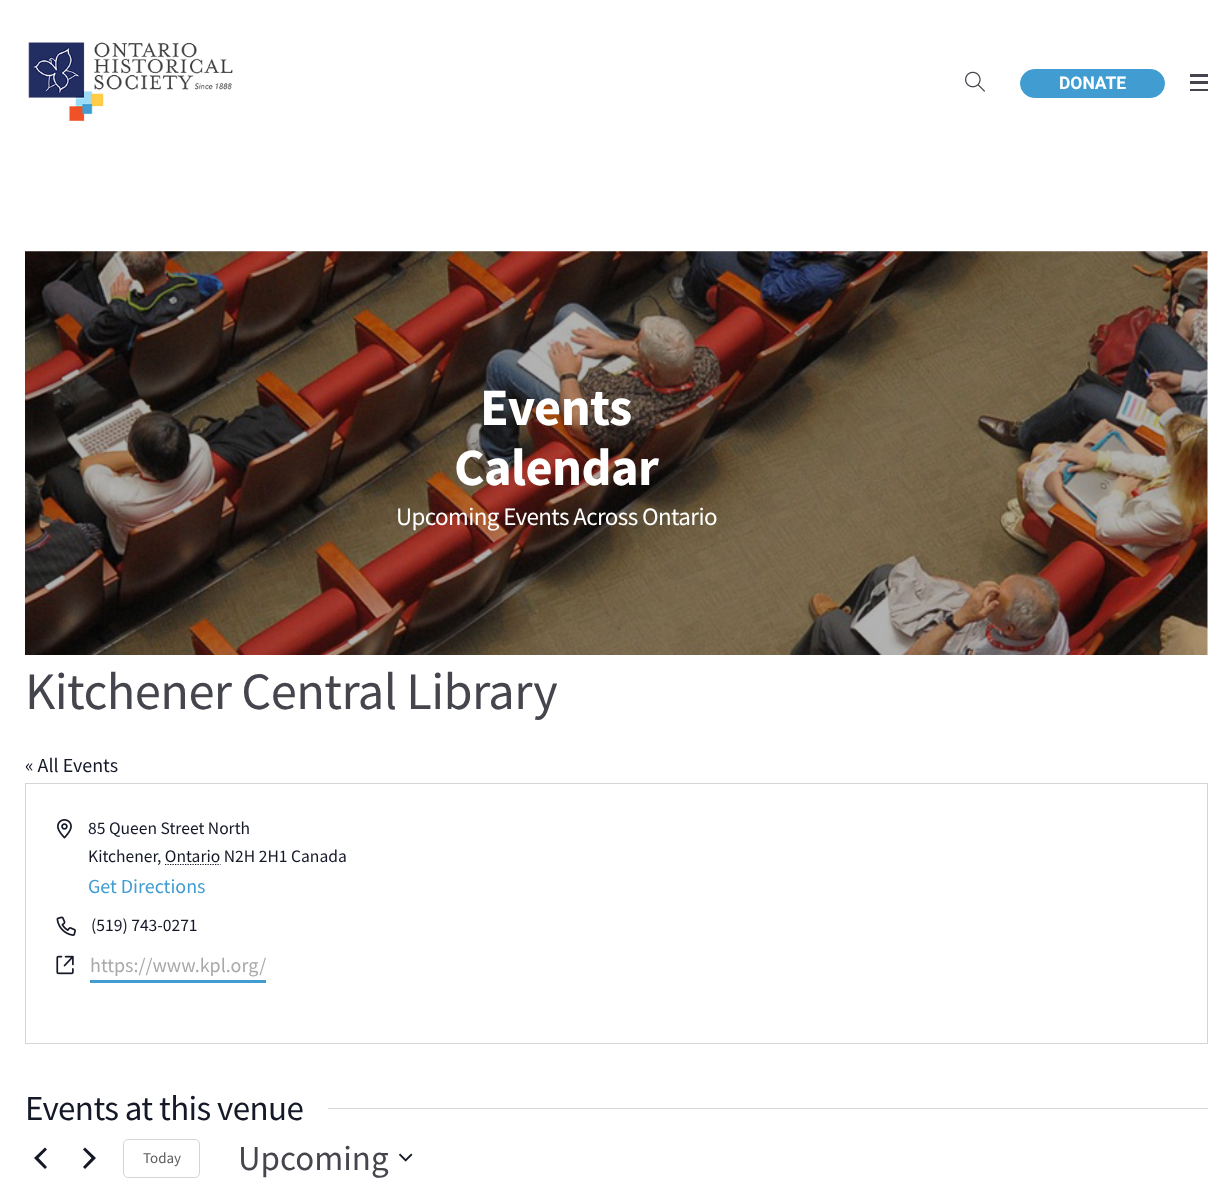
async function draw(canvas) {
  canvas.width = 1232;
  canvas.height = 1197;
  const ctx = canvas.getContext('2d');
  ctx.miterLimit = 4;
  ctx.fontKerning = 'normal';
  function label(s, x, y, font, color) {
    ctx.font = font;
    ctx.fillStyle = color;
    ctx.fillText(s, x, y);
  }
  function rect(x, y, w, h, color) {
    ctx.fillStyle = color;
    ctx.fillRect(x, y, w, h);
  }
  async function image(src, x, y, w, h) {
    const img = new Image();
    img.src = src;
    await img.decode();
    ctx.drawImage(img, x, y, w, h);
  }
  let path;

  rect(0, 0, 1232, 1197, '#fff');
  await image('assets/img1.png', 28, 42, 205, 79);
  await image('assets/img2.png', 965, 71, 20, 21);
  ctx.fillStyle = '#419dd1';
  ctx.beginPath();
  ctx.roundRect(1020.5, 69.5, 144, 28, 14);
  ctx.fill();
  ctx.strokeStyle = '#419dd1';
  ctx.stroke();
  label('DONATE', 1059, 89, 'bold 17.5px Heebo', '#fff');
  rect(1190, 74, 18, 3, '#45454d');
  rect(1190, 81, 18, 3, '#45454d');
  rect(1190, 89, 18, 2, '#45454d');
  await image('assets/img3.png', 25, 251, 1183, 404);
  ctx.letterSpacing = '-0.6px';
  label('Events', 480, 425, 'bold 52.5px Source Sans Pro', '#fff');
  label('Calendar', 454, 485, 'bold 52.5px Source Sans Pro', '#fff');
  label('Upcoming Events Across Ontario', 396, 525, '25px Source Sans Pro', '#fff');
  label('Kitchener Central Library', 25, 709, '52.5px Source Sans Pro', '#45454d');
  ctx.letterSpacing = '0px';
  label('« All Events', 25, 772, '20px Source Sans Pro', '#141827');
  ctx.strokeStyle = '#d5d5d5';
  ctx.strokeRect(25.5, 783.5, 1182, 260);
  await image('assets/img4.png', 57, 819, 15, 20);
  label('85 Queen Street North', 88, 834, '17.5px Source Sans Pro', '#141827');
  label('Kitchener', 88, 862, '17.5px Source Sans Pro', '#141827');
  label(', Ontario N2H 2H1 Canada', 157, 862, '17.5px Source Sans Pro', '#141827');
  path = new Path2D('M165 864.5H220.5');
  ctx.strokeStyle = '#141827';
  ctx.lineWidth = 1.2;
  ctx.setLineDash([1.25, 1.25]);
  ctx.stroke(path);
  label('Get Directions', 88, 893, '20px Source Sans Pro', '#419dd1');
  await image('assets/img5.png', 56, 916, 20, 20);
  label('(519) 743-0271', 91, 931, '17.5px Source Sans Pro', '#141827');
  await image('assets/img6.png', 56, 955, 18, 20);
  rect(90, 980, 176, 3, '#419dd1');
  label('https://www.kpl.org/', 90, 972, '20px Source Sans Pro', '#a8a9ab');
  ctx.letterSpacing = '-0.6px';
  label('Events at this venue', 25, 1120, '35px Source Sans Pro', '#141827');
  rect(328, 1108, 880, 1, '#d5d5d5');
  ctx.fillStyle = '#141827';
  path = new Path2D('M47 1167L45 1169L34 1158L45 1147.5L47 1149.5L38.5 1158ZM83 1149.5L85 1147.5L96 1158L85 1169L83 1167L91.5 1158Z');
  ctx.fill(path);
  ctx.beginPath();
  ctx.roundRect(123.5, 1139.5, 76, 38, 4.5);
  ctx.strokeStyle = '#d5d5d5';
  ctx.lineWidth = 1;
  ctx.setLineDash([]);
  ctx.stroke();
  ctx.letterSpacing = '0px';
  label('Today', 143, 1163, '15px Source Sans Pro', '#5d5d5d');
  label('Upcoming', 238, 1170, '35px Source Sans Pro', '#45454d');
  await image('assets/img7.png', 399, 1153, 14, 9);
}

draw(document.querySelector('canvas'));
